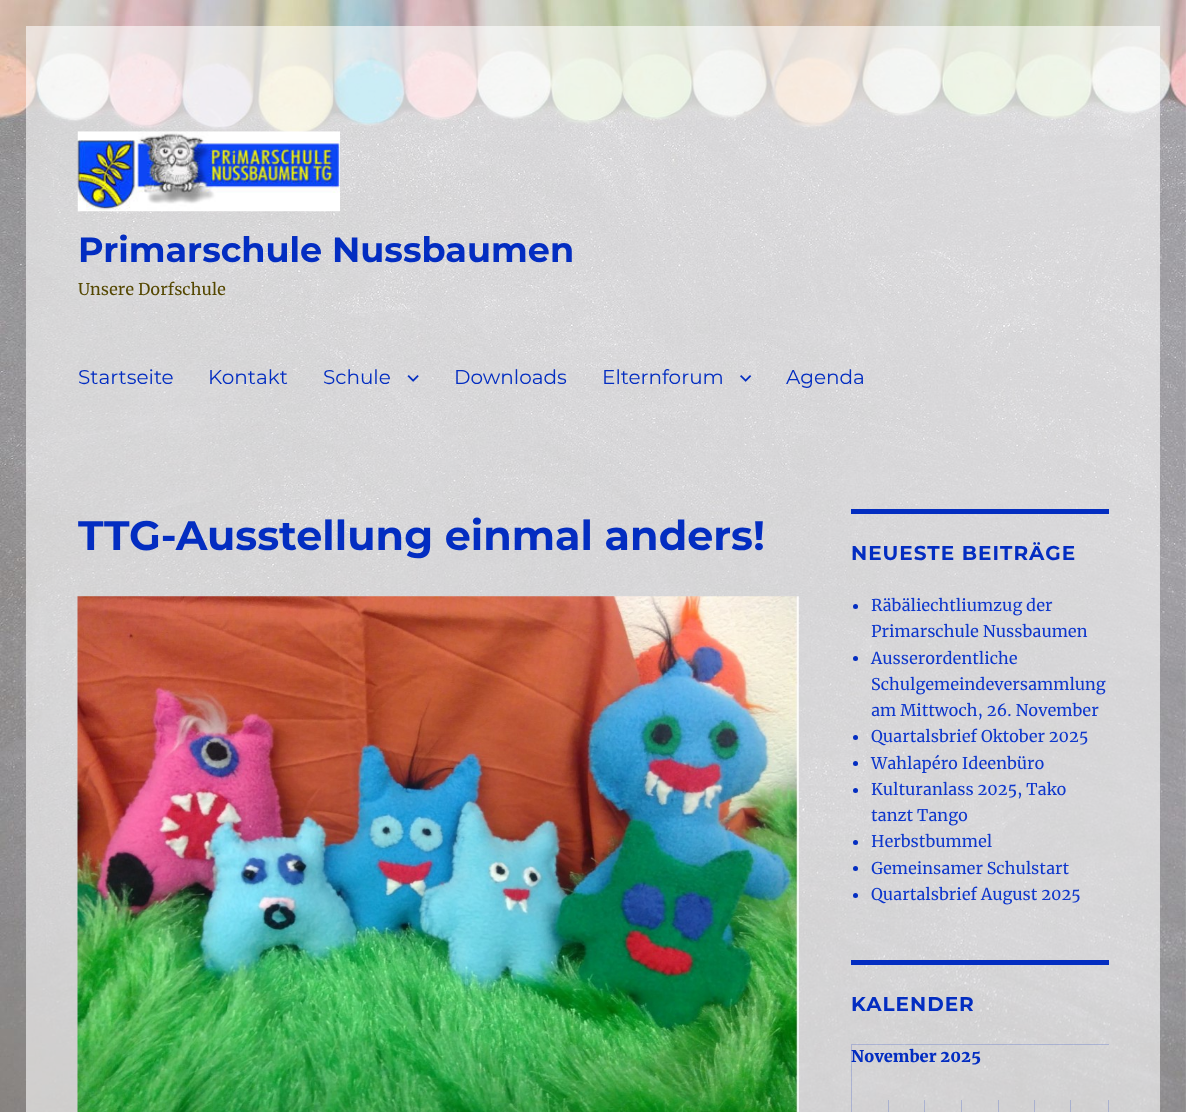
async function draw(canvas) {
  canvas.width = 1186;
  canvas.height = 1112;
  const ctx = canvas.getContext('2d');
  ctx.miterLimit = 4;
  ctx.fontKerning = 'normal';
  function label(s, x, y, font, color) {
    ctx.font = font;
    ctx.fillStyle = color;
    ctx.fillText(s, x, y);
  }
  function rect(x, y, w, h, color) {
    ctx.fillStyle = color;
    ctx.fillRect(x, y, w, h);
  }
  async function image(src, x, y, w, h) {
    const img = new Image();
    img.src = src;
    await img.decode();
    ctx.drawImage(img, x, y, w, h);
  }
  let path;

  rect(0, 0, 1186, 1112, '#fff');
  await image('assets/img1.png', 0, 0, 1186, 1112);
  await image('assets/img2.png', 77, 131, 263, 81);
  label('Primarschule Nussbaumen', 78, 262, '100 35px Montserrat', '#032dc1');
  label('Unsere Dorfschule', 78, 295, '16.25px Merriweather', '#544700');
  label('Startseite', 78, 384, '100 20px "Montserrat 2"', '#032dc1');
  label('Kontakt', 208, 384, '100 20px "Montserrat 2"', '#032dc1');
  label('Schule', 323, 384, '100 20px "Montserrat 2"', '#032dc1');
  await image('assets/img3.png', 407, 375, 12, 7);
  label('Downloads', 454, 384, '100 20px "Montserrat 2"', '#032dc1');
  label('Elternforum', 602, 384, '100 20px "Montserrat 2"', '#032dc1');
  await image('assets/img4.png', 740, 375, 12, 7);
  label('Agenda', 786, 384, '100 20px "Montserrat 2"', '#032dc1');
  label('TTG-Ausstellung einmal anders!', 78, 550, '100 41.25px Montserrat', '#032dc1');
  await image('assets/img5.png', 77, 596, 722, 516);
  rect(851, 509, 258, 5, '#032dc1');
  ctx.letterSpacing = '1px';
  label('NEUESTE BEITRÄGE', 851, 560, '100 20px Montserrat', '#032dc1');
  ctx.beginPath();
  ctx.arc(855.5, 606.5, 2.5, 0, 2 * Math.PI);
  ctx.fill();
  ctx.letterSpacing = '0px';
  label('Räbäliechtliumzug der', 871, 611, '16.25px Merriweather', '#0e37cc');
  label('Primarschule Nussbaumen', 871, 637, '16.25px Merriweather', '#0e37cc');
  ctx.fillStyle = '#032dc1';
  ctx.beginPath();
  ctx.arc(855.5, 658.5, 2.5, 0, 2 * Math.PI);
  ctx.fill();
  label('Ausserordentliche', 871, 664, '16.25px Merriweather', '#0e37cc');
  label('Schulgemeindeversammlung', 871, 690, '16.25px Merriweather', '#0e37cc');
  label('am Mittwoch, 26. November', 871, 716, '16.25px Merriweather', '#0e37cc');
  ctx.fillStyle = '#032dc1';
  ctx.beginPath();
  ctx.arc(855.5, 737.5, 2.5, 0, 2 * Math.PI);
  ctx.fill();
  label('Quartalsbrief Oktober 2025', 871, 742, '16.25px Merriweather', '#0e37cc');
  ctx.fillStyle = '#032dc1';
  ctx.beginPath();
  ctx.arc(855.5, 763.5, 2.5, 0, 2 * Math.PI);
  ctx.fill();
  label('Wahlapéro Ideenbüro', 871, 769, '16.25px Merriweather', '#0e37cc');
  ctx.fillStyle = '#032dc1';
  ctx.beginPath();
  ctx.arc(855.5, 790.5, 2.5, 0, 2 * Math.PI);
  ctx.fill();
  label('Kulturanlass 2025, Tako', 871, 795, '16.25px Merriweather', '#0e37cc');
  label('tanzt Tango', 871, 821, '16.25px Merriweather', '#0e37cc');
  ctx.fillStyle = '#032dc1';
  ctx.beginPath();
  ctx.arc(855.5, 842.5, 2.5, 0, 2 * Math.PI);
  ctx.fill();
  label('Herbstbummel', 871, 847, '16.25px Merriweather', '#0e37cc');
  ctx.fillStyle = '#032dc1';
  ctx.beginPath();
  ctx.arc(855.5, 868.5, 2.5, 0, 2 * Math.PI);
  ctx.fill();
  label('Gemeinsamer Schulstart', 871, 874, '16.25px Merriweather', '#0e37cc');
  ctx.fillStyle = '#032dc1';
  ctx.beginPath();
  ctx.arc(855.5, 895.5, 2.5, 0, 2 * Math.PI);
  ctx.fill();
  label('Quartalsbrief August 2025', 871, 900, '16.25px Merriweather', '#0e37cc');
  rect(851, 960, 258, 5, '#032dc1');
  ctx.letterSpacing = '1px';
  label('KALENDER', 851, 1011, '100 20px Montserrat', '#032dc1');
  ctx.fillStyle = '#032dc133';
  path = new Path2D('M851 1044H1109V1045H852Z');
  ctx.fill(path);
  path = new Path2D('M851 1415V1044L852 1045V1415Z');
  ctx.fill(path);
  ctx.letterSpacing = '0px';
  label('November 2025', 851, 1062, '900 16.25px Merriweather', '#032dc1');
  ctx.fillStyle = '#a9b1cf';
  path = new Path2D('M889 1100V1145L888 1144V1100Z');
  ctx.fill(path);
  ctx.fillStyle = '#032dc133';
  path = new Path2D('M925 1100V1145L924 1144V1100ZM962 1100V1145L961 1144V1100Z');
  ctx.fill(path);
  path = new Path2D('M999 1100V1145L998 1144V1100ZM1035 1100V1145L1034 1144V1100Z');
  ctx.fill(path);
  ctx.fillStyle = '#a8b0ce';
  path = new Path2D('M1071 1100V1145L1070 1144V1100Z');
  ctx.fill(path);
  ctx.fillStyle = '#032dc133';
  path = new Path2D('M1109 1100V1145L1108 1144V1100Z');
  ctx.fill(path);
}

draw(document.querySelector('canvas'));
